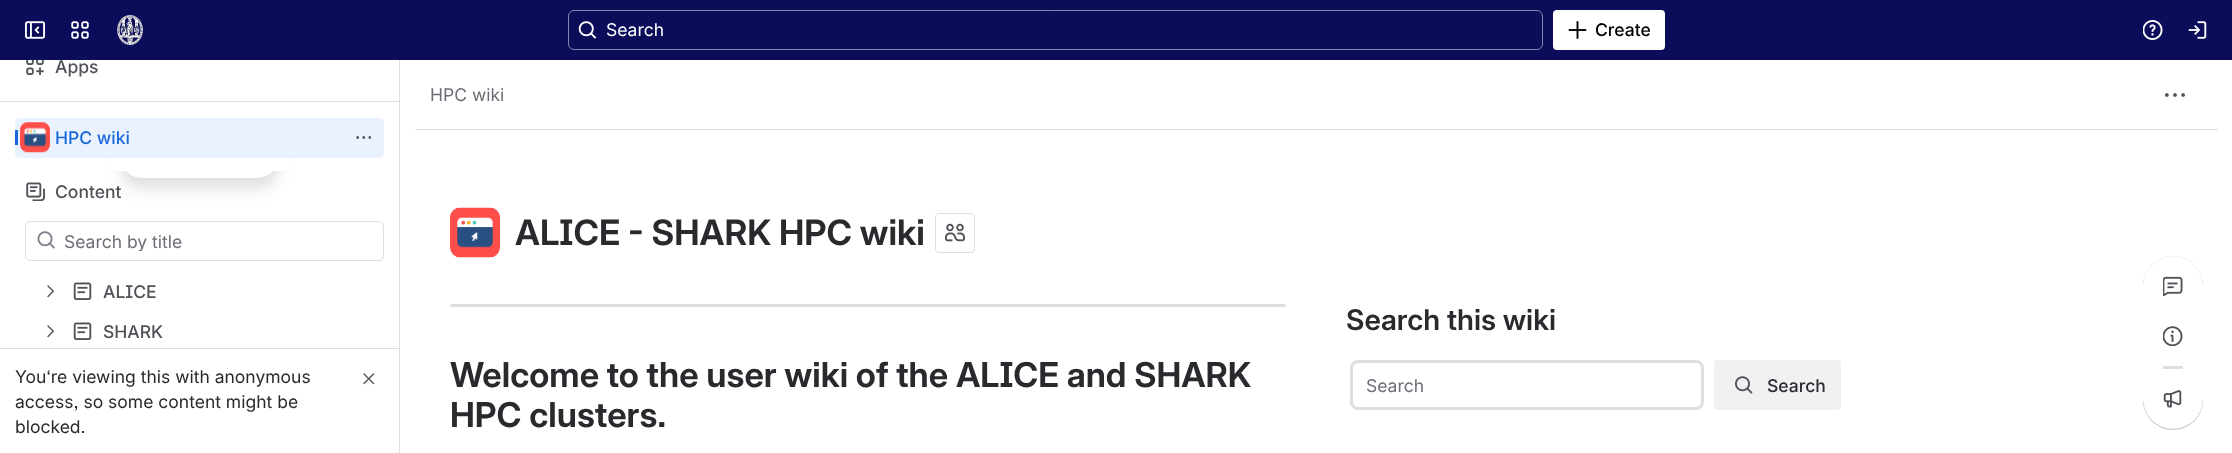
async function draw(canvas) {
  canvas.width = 2232;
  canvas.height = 453;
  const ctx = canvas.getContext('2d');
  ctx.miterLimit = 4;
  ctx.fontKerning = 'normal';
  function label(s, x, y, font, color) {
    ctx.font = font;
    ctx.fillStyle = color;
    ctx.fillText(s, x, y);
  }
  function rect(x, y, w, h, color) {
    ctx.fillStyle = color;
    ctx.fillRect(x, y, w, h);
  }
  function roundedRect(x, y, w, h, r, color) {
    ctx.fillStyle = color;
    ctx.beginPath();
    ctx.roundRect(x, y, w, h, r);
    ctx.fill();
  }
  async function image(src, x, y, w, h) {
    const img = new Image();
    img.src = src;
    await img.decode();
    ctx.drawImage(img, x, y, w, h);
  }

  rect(0, 0, 2232, 453, '#fff');
  rect(0, 0, 2232, 59, '#0b0d5a');
  rect(0, 59, 2232, 1, '#0b0e4f');
  await image('assets/img1.png', 25, 21, 20, 18);
  await image('assets/img2.png', 71, 21, 18, 18);
  await image('assets/img3.png', 116, 15, 28, 30);
  ctx.beginPath();
  ctx.roundRect(568.5, 10.5, 974, 39, 5.5);
  ctx.strokeStyle = '#8586ad';
  ctx.stroke();
  await image('assets/img4.png', 578, 21, 19, 18);
  label('Search', 606, 36, '17.5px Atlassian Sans', '#fff');
  roundedRect(1553, 10, 112, 40, 4, '#fff');
  await image('assets/img5.png', 1568, 21, 19, 18);
  label('Create', 1595, 36, '500 17.5px Atlassian Sans', '#000');
  await image('assets/img6.png', 2143, 20, 20, 20);
  await image('assets/img7.png', 2188, 21, 19, 18);
  rect(399, 60, 1, 393, '#dddedd');
  await image('assets/img8.png', 26, 60, 18, 15);
  label('Apps', 55, 73, '500 17.5px Atlassian Sans', '#505258');
  rect(0, 101, 399, 1, '#dddedd');
  ctx.fillStyle = '#1e1f214f';
  ctx.filter = 'blur(0.5px)';
  ctx.beginPath();
  ctx.roundRect(121, 138, 157, 40, 20);
  ctx.fill();
  ctx.filter = 'none';
  ctx.fillStyle = '#1e1f2126';
  ctx.filter = 'blur(7.5px)';
  ctx.beginPath();
  ctx.roundRect(121, 148, 157, 40, 20);
  ctx.fill();
  ctx.filter = 'none';
  roundedRect(121, 138, 157, 40, 20, '#fff');
  rect(111, 137, 177, 34, '#fff');
  roundedRect(15, 118, 369, 40, 5, '#e9f2fe');
  await image('assets/img9.png', 20, 122, 30, 31);
  rect(15, 130, 3, 15, '#1868db');
  label('HPC wiki', 55, 144, '500 17.5px Atlassian Sans', '#1868db');
  await image('assets/img10.png', 356, 136, 15, 3);
  await image('assets/img11.png', 26, 182, 19, 19);
  label('Content', 55, 198, '500 17.5px Atlassian Sans', '#505258');
  ctx.beginPath();
  ctx.roundRect(25.5, 221.5, 358, 39, 4.5);
  ctx.strokeStyle = '#dddedd';
  ctx.stroke();
  await image('assets/img12.png', 37, 231, 18, 18);
  ctx.save();
  ctx.beginPath();
  ctx.rect(64, 230, 311, 21);
  ctx.clip();
  label('Search by title', 64, 248, '17.5px Atlassian Sans', '#6b6e76');
  ctx.restore();
  await image('assets/img13.png', 47, 285, 7, 13);
  await image('assets/img14.png', 73, 282, 19, 18);
  label('ALICE', 103, 298, '500 17.5px Atlassian Sans', '#505258');
  await image('assets/img13.png', 47, 325, 7, 13);
  await image('assets/img14.png', 73, 322, 19, 18);
  label('SHARK', 103, 338, '500 17.5px Atlassian Sans', '#505258');
  rect(0, 348, 399, 1, '#dddedd');
  label('You‘re viewing this with anonymous', 15, 383, '17.5px Atlassian Sans', '#292a2e');
  label('access, so some content might be', 15, 408, '17.5px Atlassian Sans', '#292a2e');
  label('blocked.', 15, 433, '17.5px Atlassian Sans', '#292a2e');
  await image('assets/img15.png', 363, 373, 12, 12);
  rect(415, 129, 1803, 1, '#dddedd');
  label('HPC wiki', 430, 101, '17.5px Atlassian Sans', '#6b6e76');
  await image('assets/img16.png', 2165, 93, 20, 4);
  await image('assets/img17.png', 450, 207, 50, 51);
  label('ALICE - SHARK HPC wiki', 515, 245, 'bold 35px Atlassian Sans', '#292a2e');
  ctx.beginPath();
  ctx.roundRect(935.5, 213.5, 39, 39, 3.5);
  ctx.stroke();
  await image('assets/img18.png', 945, 223, 20, 19);
  roundedRect(450, 304, 836, 3, 1.5, '#dddedd');
  label('Welcome to the user wiki of the ALICE and SHARK', 450, 387, 'bold 34.25px "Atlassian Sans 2"', '#292a2e');
  label('HPC clusters.', 450, 427, 'bold 34.25px "Atlassian Sans 2"', '#292a2e');
  label('Search this wiki', 1346, 330, '600 28.5px Atlassian Sans', '#292a2e');
  ctx.beginPath();
  ctx.roundRect(1351.5, 361.5, 351, 47, 6.5);
  ctx.lineWidth = 3;
  ctx.stroke();
  label('Search', 1366, 392, '17.5px Atlassian Sans', '#6b6e76');
  roundedRect(1714, 360, 127, 50, 4, '#f0f1f2');
  await image('assets/img19.png', 1735, 376, 18, 18);
  label('Search', 1767, 392, '500 17.5px Atlassian Sans', '#292a2e');
  ctx.fillStyle = '#1e1f214f';
  ctx.filter = 'blur(0.5px)';
  ctx.beginPath();
  ctx.roundRect(2143, 256, 60, 173, 30);
  ctx.fill();
  ctx.filter = 'none';
  ctx.fillStyle = '#1e1f2140';
  ctx.filter = 'blur(0.5px)';
  ctx.beginPath();
  ctx.roundRect(2143, 258, 60, 172, 30);
  ctx.fill();
  ctx.filter = 'none';
  roundedRect(2143, 256, 60, 173, 30, '#fff');
  await image('assets/img20.png', 2163, 276, 20, 20);
  await image('assets/img21.png', 2163, 326, 20, 20);
  rect(2163, 366, 20, 3, '#dddedd');
  await image('assets/img22.png', 2163, 390, 19, 18);
}

draw(document.querySelector('canvas'));
